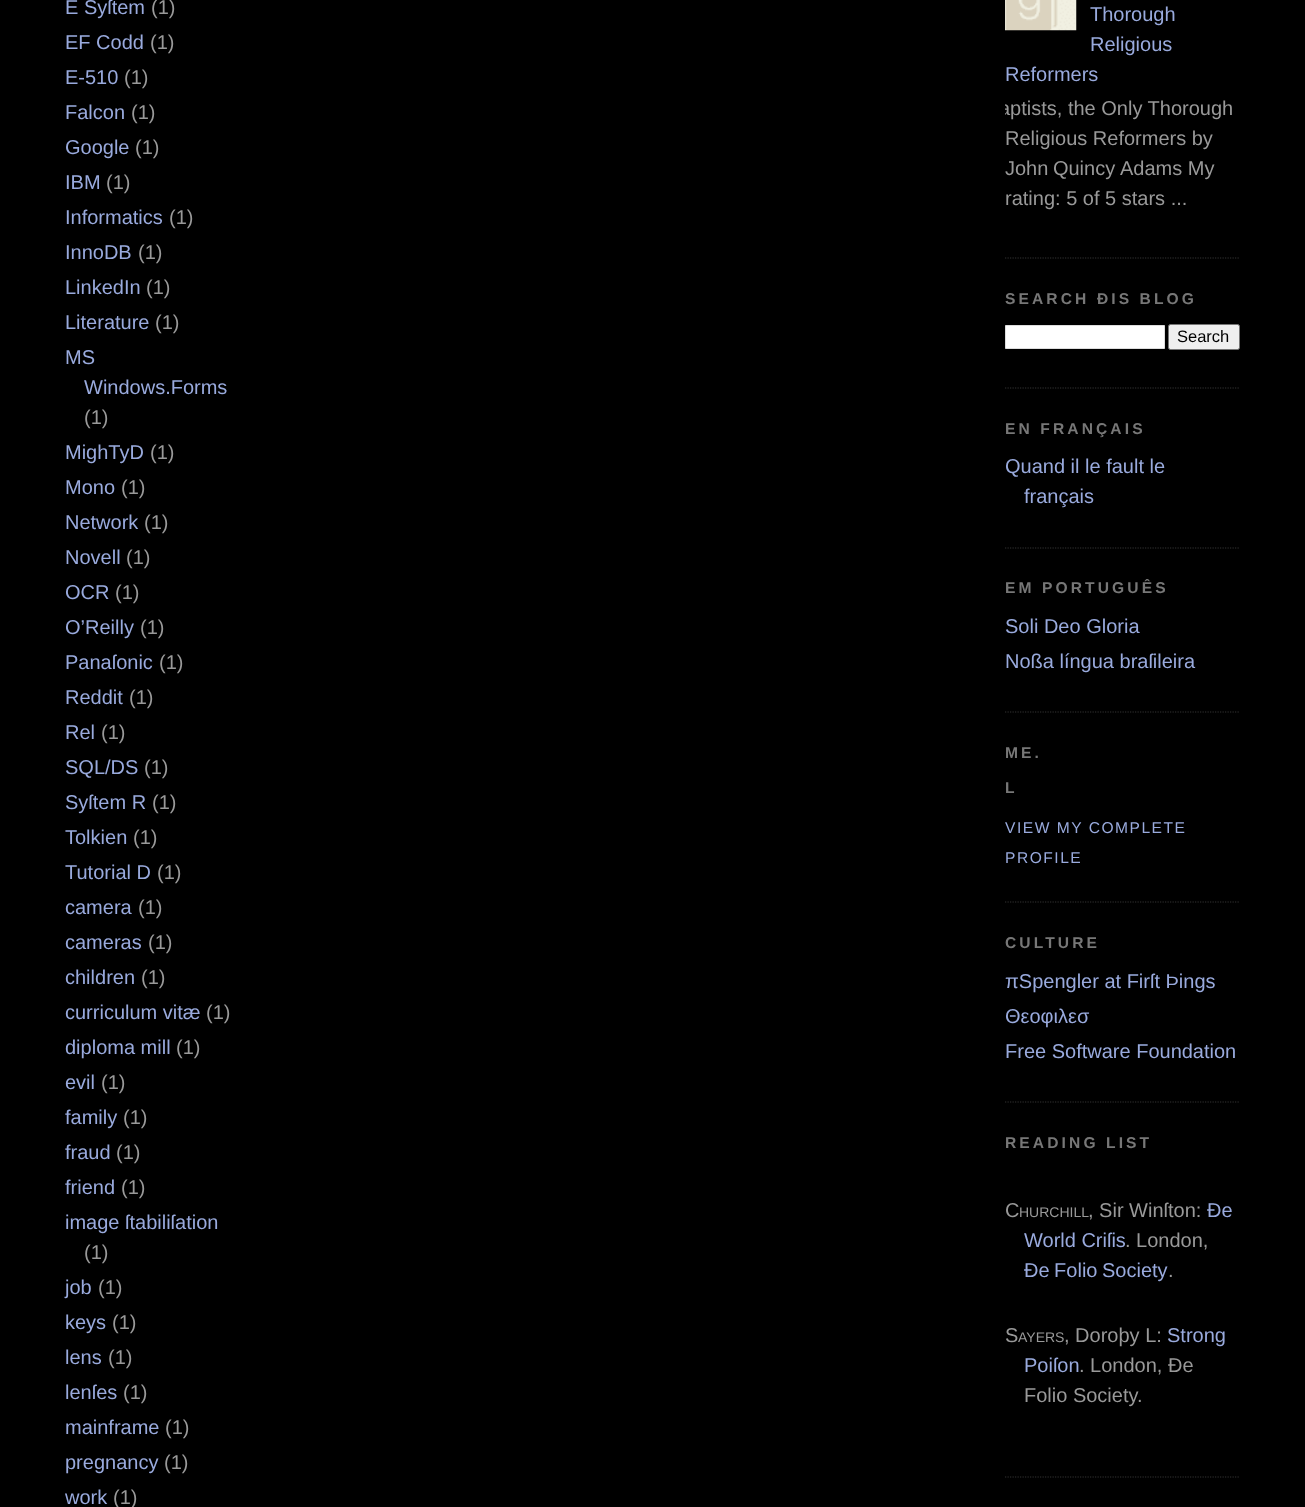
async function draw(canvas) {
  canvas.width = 1305;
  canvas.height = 1507;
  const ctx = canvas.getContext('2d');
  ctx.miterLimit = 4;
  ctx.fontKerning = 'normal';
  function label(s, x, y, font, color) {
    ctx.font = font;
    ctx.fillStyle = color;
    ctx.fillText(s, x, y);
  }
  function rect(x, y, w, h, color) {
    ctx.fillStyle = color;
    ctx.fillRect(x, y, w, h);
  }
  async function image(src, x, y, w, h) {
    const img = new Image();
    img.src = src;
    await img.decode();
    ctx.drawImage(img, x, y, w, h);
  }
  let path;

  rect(0, 0, 1305, 1507, '#000');
  label('E Syſtem', 65, 14, '20px Liberation Sans', '#9ad');
  label('(1)', 151, 14, '20px Liberation Sans', '#999');
  label('EF Codd', 65, 49, '20px Liberation Sans', '#9ad');
  label('(1)', 150, 49, '20px Liberation Sans', '#999');
  label('E‐510', 65, 84, '20px Liberation Sans', '#9ad');
  label('(1)', 124, 84, '20px Liberation Sans', '#999');
  label('Falcon', 65, 119, '20px Liberation Sans', '#9ad');
  label('(1)', 131, 119, '20px Liberation Sans', '#999');
  label('Google', 65, 154, '20px Liberation Sans', '#9ad');
  label('(1)', 135, 154, '20px Liberation Sans', '#999');
  label('IBM', 65, 189, '20px Liberation Sans', '#9ad');
  label('(1)', 106, 189, '20px Liberation Sans', '#999');
  label('Informatics', 65, 224, '20px Liberation Sans', '#9ad');
  label('(1)', 169, 224, '20px Liberation Sans', '#999');
  label('InnoDB', 65, 259, '20px Liberation Sans', '#9ad');
  label('(1)', 138, 259, '20px Liberation Sans', '#999');
  label('LinkedIn', 65, 294, '20px Liberation Sans', '#9ad');
  label('(1)', 146, 294, '20px Liberation Sans', '#999');
  label('Literature', 65, 329, '20px Liberation Sans', '#9ad');
  label('(1)', 155, 329, '20px Liberation Sans', '#999');
  label('MS', 65, 364, '20px Liberation Sans', '#9ad');
  label('Windows.Forms', 84, 394, '20px Liberation Sans', '#9ad');
  label('(1)', 84, 424, '20px Liberation Sans', '#999');
  label('MighTyD', 65, 459, '20px Liberation Sans', '#9ad');
  label('(1)', 150, 459, '20px Liberation Sans', '#999');
  label('Mono', 65, 494, '20px Liberation Sans', '#9ad');
  label('(1)', 121, 494, '20px Liberation Sans', '#999');
  label('Network', 65, 529, '20px Liberation Sans', '#9ad');
  label('(1)', 144, 529, '20px Liberation Sans', '#999');
  label('Novell', 65, 564, '20px Liberation Sans', '#9ad');
  label('(1)', 126, 564, '20px Liberation Sans', '#999');
  label('OCR', 65, 599, '20px Liberation Sans', '#9ad');
  label('(1)', 115, 599, '20px Liberation Sans', '#999');
  label('O’Reilly', 65, 634, '20px Liberation Sans', '#9ad');
  label('(1)', 140, 634, '20px Liberation Sans', '#999');
  label('Panaſonic', 65, 669, '20px Liberation Sans', '#9ad');
  label('(1)', 159, 669, '20px Liberation Sans', '#999');
  label('Reddit', 65, 704, '20px Liberation Sans', '#9ad');
  label('(1)', 129, 704, '20px Liberation Sans', '#999');
  label('Rel', 65, 739, '20px Liberation Sans', '#9ad');
  label('(1)', 101, 739, '20px Liberation Sans', '#999');
  label('SQL/DS', 65, 774, '20px Liberation Sans', '#9ad');
  label('(1)', 144, 774, '20px Liberation Sans', '#999');
  label('Syſtem R', 65, 809, '20px Liberation Sans', '#9ad');
  label('(1)', 152, 809, '20px Liberation Sans', '#999');
  label('Tolkien', 65, 844, '20px Liberation Sans', '#9ad');
  label('(1)', 133, 844, '20px Liberation Sans', '#999');
  label('Tutorial D', 65, 879, '20px Liberation Sans', '#9ad');
  label('(1)', 157, 879, '20px Liberation Sans', '#999');
  label('camera', 65, 914, '20px Liberation Sans', '#9ad');
  label('(1)', 138, 914, '20px Liberation Sans', '#999');
  label('cameras', 65, 949, '20px Liberation Sans', '#9ad');
  label('(1)', 148, 949, '20px Liberation Sans', '#999');
  label('children', 65, 984, '20px Liberation Sans', '#9ad');
  label('(1)', 141, 984, '20px Liberation Sans', '#999');
  label('curriculum vitæ', 65, 1019, '20px Liberation Sans', '#9ad');
  label('(1)', 206, 1019, '20px Liberation Sans', '#999');
  label('diploma mill', 65, 1054, '20px Liberation Sans', '#9ad');
  label('(1)', 176, 1054, '20px Liberation Sans', '#999');
  label('evil', 65, 1089, '20px Liberation Sans', '#9ad');
  label('(1)', 101, 1089, '20px Liberation Sans', '#999');
  label('family', 65, 1124, '20px Liberation Sans', '#9ad');
  label('(1)', 123, 1124, '20px Liberation Sans', '#999');
  label('fraud', 65, 1159, '20px Liberation Sans', '#9ad');
  label('(1)', 116, 1159, '20px Liberation Sans', '#999');
  label('friend', 65, 1194, '20px Liberation Sans', '#9ad');
  label('(1)', 121, 1194, '20px Liberation Sans', '#999');
  label('image ſtabiliſation', 65, 1229, '20px Liberation Sans', '#9ad');
  label('(1)', 84, 1259, '20px Liberation Sans', '#999');
  label('job', 65, 1294, '20px Liberation Sans', '#9ad');
  label('(1)', 98, 1294, '20px Liberation Sans', '#999');
  label('keys', 65, 1329, '20px Liberation Sans', '#9ad');
  label('(1)', 112, 1329, '20px Liberation Sans', '#999');
  label('lens', 65, 1364, '20px Liberation Sans', '#9ad');
  label('(1)', 108, 1364, '20px Liberation Sans', '#999');
  label('lenſes', 65, 1399, '20px Liberation Sans', '#9ad');
  label('(1)', 123, 1399, '20px Liberation Sans', '#999');
  label('mainframe', 65, 1434, '20px Liberation Sans', '#9ad');
  label('(1)', 165, 1434, '20px Liberation Sans', '#999');
  label('pregnancy', 65, 1469, '20px Liberation Sans', '#9ad');
  label('(1)', 164, 1469, '20px Liberation Sans', '#999');
  label('work', 65, 1504, '20px Liberation Sans', '#9ad');
  label('(1)', 113, 1504, '20px Liberation Sans', '#999');
  path = new Path2D('M1005 258H1240');
  ctx.strokeStyle = '#333';
  ctx.lineWidth = 1.2;
  ctx.setLineDash([1.25, 1.25]);
  ctx.stroke(path);
  await image('assets/img1.png', 1005, 0, 72, 31);
  label('Thorough', 1090, 21, '20px Liberation Sans', '#9ad');
  label('Religious', 1090, 51, '20px Liberation Sans', '#9ad');
  label('Reformers', 1005, 81, '20px Liberation Sans', '#9ad');
  ctx.save();
  ctx.beginPath();
  ctx.rect(1005, 0, 235, 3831);
  ctx.clip();
  label('aptists, the Only Thorough', 999, 115, '20px Liberation Sans', '#999');
  ctx.restore();
  label('Religious Reformers by', 1005, 145, '20px Liberation Sans', '#999');
  ctx.wordSpacing = '-1px';
  label('John Quincy', 1005, 175, '20px Liberation Sans', '#999');
  ctx.wordSpacing = '0px';
  label('Adams My', 1120, 175, '20px Liberation Sans', '#999');
  label('rating: 5 of 5 stars ...', 1005, 205, '20px Liberation Sans', '#999');
  path = new Path2D('M1005 388H1240');
  ctx.stroke(path);
  ctx.letterSpacing = '3.1px';
  label('SEARCH ÐIS BLOG', 1005, 304, 'bold 15.6px Liberation Sans', '#777');
  ctx.fillStyle = '#fff';
  ctx.beginPath();
  ctx.rect(1005.5, 325.5, 159, 23);
  ctx.fill();
  ctx.strokeStyle = '#ddd';
  ctx.lineWidth = 1;
  ctx.setLineDash([]);
  ctx.stroke();
  ctx.fillStyle = '#efefef';
  ctx.beginPath();
  ctx.roundRect(1168.5, 324.5, 71, 25, 2);
  ctx.fill();
  ctx.strokeStyle = '#767676';
  ctx.stroke();
  ctx.letterSpacing = '0px';
  label('Search', 1177, 342, '16.5px Liberation Sans', '#000');
  path = new Path2D('M1005 548H1240');
  ctx.strokeStyle = '#333';
  ctx.lineWidth = 1.2;
  ctx.setLineDash([1.25, 1.25]);
  ctx.stroke(path);
  ctx.letterSpacing = '3.1px';
  label('EN FRANÇAIS', 1005, 434, 'bold 15.6px Liberation Sans', '#777');
  ctx.letterSpacing = '0px';
  label('Quand il le fault le', 1005, 473, '20px Liberation Sans', '#9ad');
  label('français', 1024, 503, '20px Liberation Sans', '#9ad');
  path = new Path2D('M1005 712H1240');
  ctx.stroke(path);
  ctx.letterSpacing = '3.1px';
  label('EM PORTUGUÊS', 1005, 593, 'bold 15.6px Liberation Sans', '#777');
  ctx.letterSpacing = '0px';
  label('Soli Deo Gloria', 1005, 633, '20px Liberation Sans', '#9ad');
  label('Noßa língua braſileira', 1005, 668, '20px Liberation Sans', '#9ad');
  path = new Path2D('M1005 902H1240');
  ctx.stroke(path);
  ctx.letterSpacing = '3.1px';
  label('ME.', 1005, 758, 'bold 15.6px Liberation Sans', '#777');
  ctx.letterSpacing = '1.5px';
  label('L', 1005, 793, 'bold 15.6px Liberation Sans', '#777');
  label('VIEW MY COMPLETE', 1005, 833, '15.6px Liberation Sans', '#9ad');
  label('PROFILE', 1005, 863, '15.6px Liberation Sans', '#9ad');
  path = new Path2D('M1005 1102H1240');
  ctx.stroke(path);
  ctx.letterSpacing = '3.1px';
  label('CULTURE', 1005, 948, 'bold 15.6px Liberation Sans', '#777');
  ctx.letterSpacing = '0px';
  label('πSpengler at Firſt Þings', 1005, 988, '20px Liberation Sans', '#9ad');
  label('Θεοφιλεσ', 1005, 1023, '20px Liberation Sans', '#9ad');
  label('Free Software Foundation', 1005, 1058, '20px Liberation Sans', '#9ad');
  path = new Path2D('M1005 1477H1240');
  ctx.stroke(path);
  ctx.letterSpacing = '3.1px';
  label('READING LIST', 1005, 1148, 'bold 15.6px Liberation Sans', '#777');
  ctx.letterSpacing = '0px';
  label('C', 1005, 1217, '20px Liberation Sans', '#999');
  label('HURCHILL', 1019, 1217, '14px Liberation Sans', '#999');
  label(', Sir Winſton:', 1088, 1217, '20px Liberation Sans', '#999');
  label('Ðe', 1207, 1217, '20px Liberation Sans', '#9ad');
  label('World Criſis', 1024, 1247, '20px Liberation Sans', '#9ad');
  label('. London,', 1125, 1247, '20px Liberation Sans', '#999');
  ctx.wordSpacing = '-1px';
  label('Ðe Folio Society', 1024, 1277, '20px Liberation Sans', '#9ad');
  ctx.wordSpacing = '0px';
  label('.', 1168, 1277, '20px Liberation Sans', '#999');
  label('S', 1005, 1342, '20px Liberation Sans', '#999');
  label('AYERS', 1018, 1342, '14px Liberation Sans', '#999');
  label(', Doroþy L:', 1064, 1342, '20px Liberation Sans', '#999');
  label('Strong', 1167, 1342, '20px Liberation Sans', '#9ad');
  label('Poiſon', 1024, 1372, '20px Liberation Sans', '#9ad');
  label('. London, Ðe', 1079, 1372, '20px Liberation Sans', '#999');
  label('Folio Society.', 1024, 1402, '20px Liberation Sans', '#999');
}

draw(document.querySelector('canvas'));
